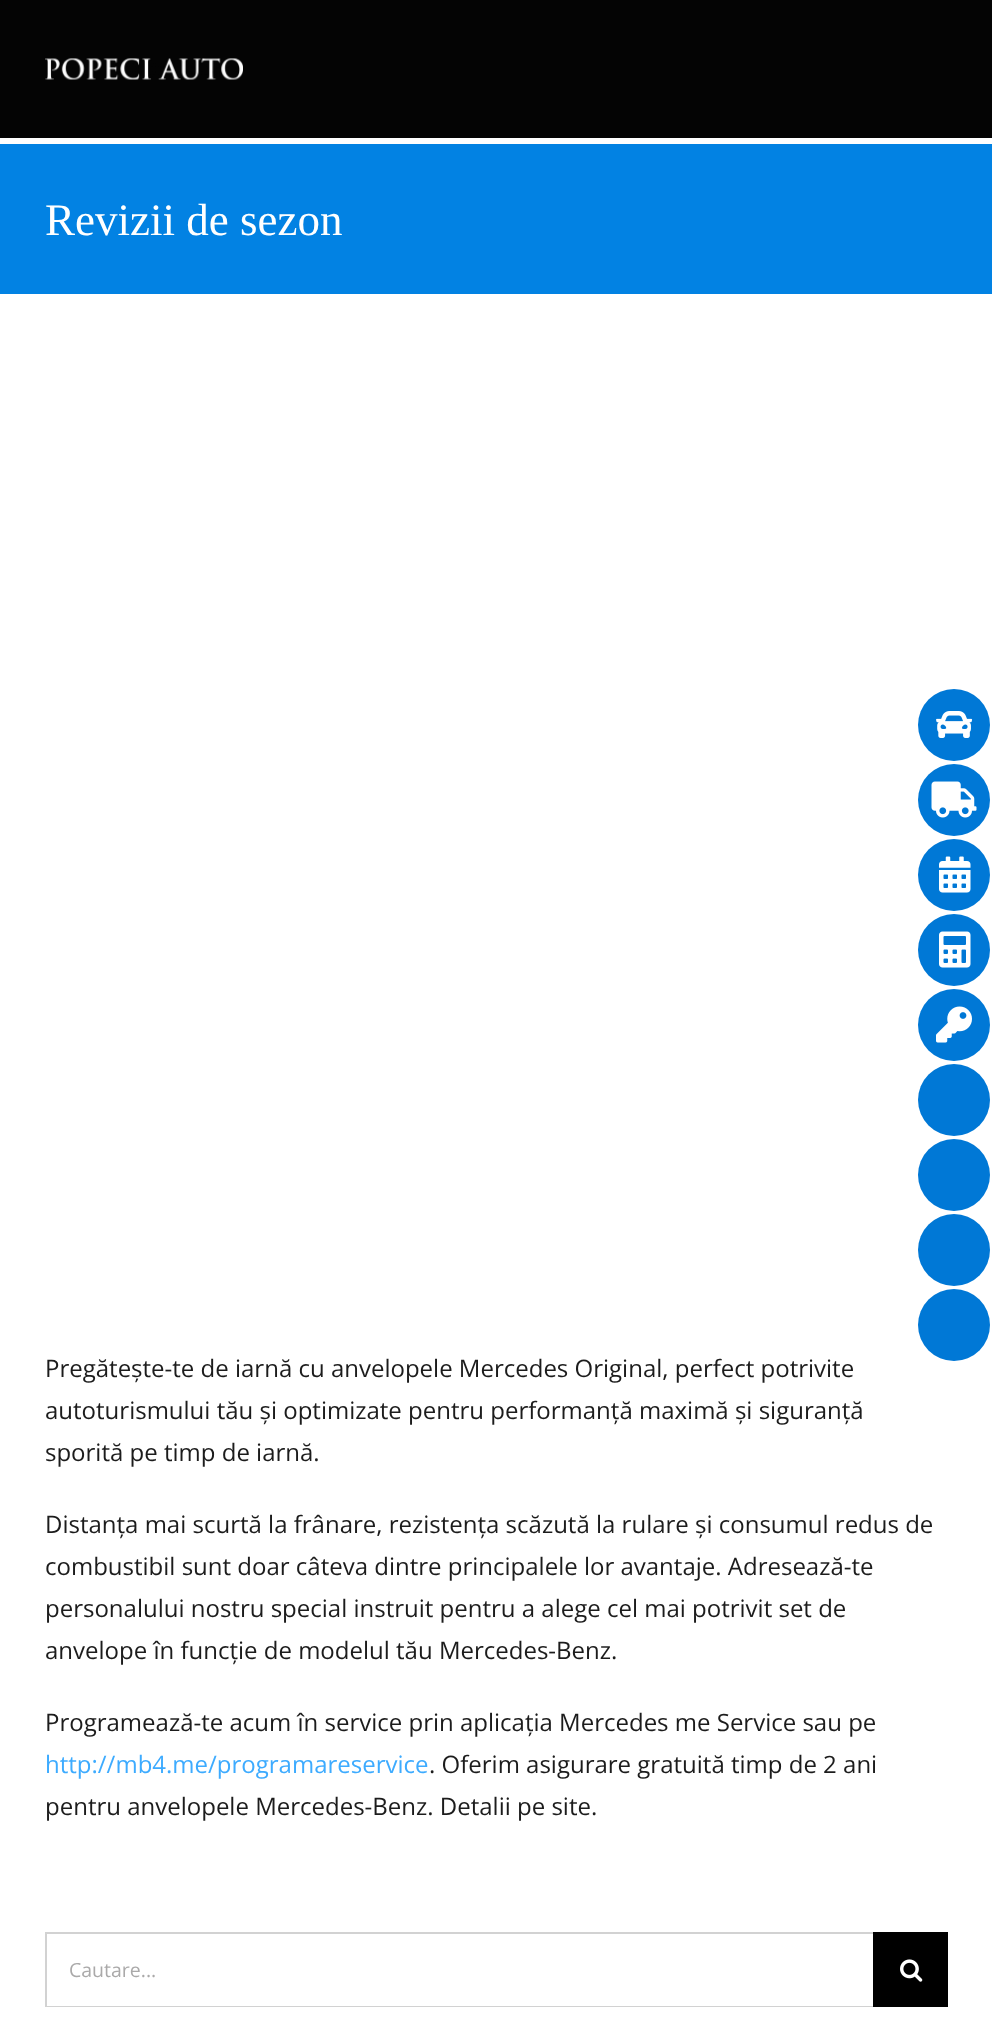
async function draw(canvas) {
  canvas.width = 992;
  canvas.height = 2025;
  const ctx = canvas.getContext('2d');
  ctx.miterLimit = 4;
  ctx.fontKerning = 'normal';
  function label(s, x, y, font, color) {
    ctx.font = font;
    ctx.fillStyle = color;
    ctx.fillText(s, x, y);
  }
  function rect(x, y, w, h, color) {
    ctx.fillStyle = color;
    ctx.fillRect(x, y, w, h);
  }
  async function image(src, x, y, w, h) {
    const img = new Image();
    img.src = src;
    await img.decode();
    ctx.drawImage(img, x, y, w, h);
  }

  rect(0, 0, 992, 2025, '#fff');
  rect(0, 0, 992, 138, '#040404');
  await image('assets/img1.png', 45, 58, 198, 22);
  rect(0, 144, 992, 150, '#0282e3');
  label('Revizii de sezon', 45, 235, '45px Liberation Serif', '#fff');
  label('Pregătește-te de iarnă cu anvelopele Mercedes Original, perfect potrivite', 45, 1377, '24px Open Sans', '#1c1c1c');
  label('autoturismului tău și optimizate pentru performanță maximă și siguranță', 45, 1419, '24px Open Sans', '#1c1c1c');
  label('sporită pe timp de iarnă.', 45, 1461, '24px Open Sans', '#1c1c1c');
  label('Distanța mai scurtă la frânare, rezistența scăzută la rulare și consumul redus de', 45, 1533, '24px Open Sans', '#1c1c1c');
  label('combustibil sunt doar câteva dintre principalele lor avantaje. Adresează-te', 45, 1575, '24px Open Sans', '#1c1c1c');
  label('personalului nostru special instruit pentru a alege cel mai potrivit set de', 45, 1617, '24px Open Sans', '#1c1c1c');
  label('anvelope în funcție de modelul tău Mercedes-Benz.', 45, 1659, '24px Open Sans', '#1c1c1c');
  label('Programează-te acum în service prin aplicația Mercedes me Service sau pe', 45, 1731, '24px Open Sans', '#1c1c1c');
  label('http://mb4.me/programareservice', 45, 1773, '24px Open Sans', '#3dabff');
  label('. Oferim asigurare gratuită timp de 2 ani', 429, 1773, '24px Open Sans', '#1c1c1c');
  label('pentru anvelopele Mercedes-Benz. Detalii pe site.', 45, 1815, '24px Open Sans', '#1c1c1c');
  rect(45, 1932, 828, 2, '#d2d2d2');
  rect(45, 2006, 828, 1, '#d2d2d2');
  rect(45, 1932, 2, 75, '#d2d2d2');
  label('Cautare...', 69, 1977, '19.5px Open Sans', '#aaa9a9');
  rect(873, 1932, 75, 75, '#000');
  await image('assets/img2.png', 900, 1959, 23, 23);
  ctx.fillStyle = '#0078d6';
  ctx.beginPath();
  ctx.arc(954, 725, 36, 0, 2 * Math.PI);
  ctx.fill();
  await image('assets/img3.png', 936, 711, 37, 27);
  ctx.beginPath();
  ctx.arc(954, 800, 36, 0, 2 * Math.PI);
  ctx.fill();
  await image('assets/img4.png', 931, 781, 46, 37);
  ctx.beginPath();
  ctx.arc(954, 875, 36, 0, 2 * Math.PI);
  ctx.fill();
  await image('assets/img5.png', 939, 856, 32, 37);
  ctx.beginPath();
  ctx.arc(954, 950, 36, 0, 2 * Math.PI);
  ctx.fill();
  await image('assets/img6.png', 939, 931, 32, 37);
  ctx.beginPath();
  ctx.arc(954, 1025, 36, 0, 2 * Math.PI);
  ctx.fill();
  await image('assets/img7.png', 936, 1006, 36, 37);
  ctx.beginPath();
  ctx.arc(954, 1100, 36, 0, 2 * Math.PI);
  ctx.fill();
  ctx.beginPath();
  ctx.arc(954, 1175, 36, 0, 2 * Math.PI);
  ctx.fill();
  ctx.beginPath();
  ctx.arc(954, 1250, 36, 0, 2 * Math.PI);
  ctx.fill();
  ctx.beginPath();
  ctx.arc(954, 1325, 36, 0, 2 * Math.PI);
  ctx.fill();
}

draw(document.querySelector('canvas'));
